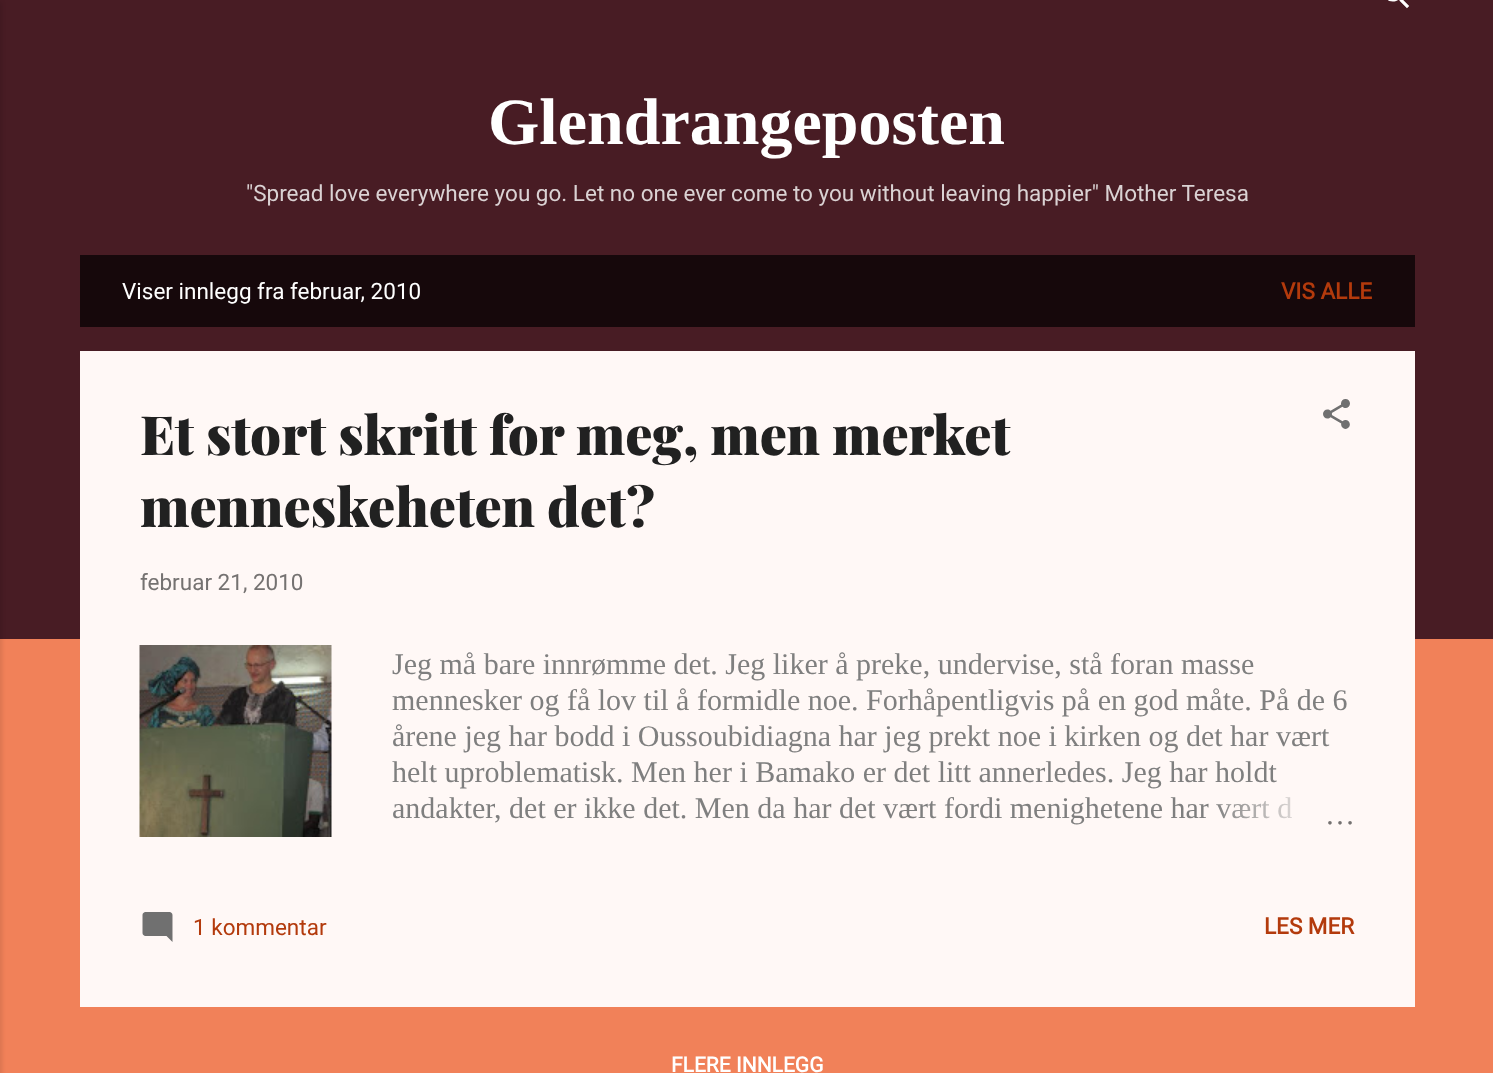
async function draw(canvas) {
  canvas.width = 1493;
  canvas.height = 1073;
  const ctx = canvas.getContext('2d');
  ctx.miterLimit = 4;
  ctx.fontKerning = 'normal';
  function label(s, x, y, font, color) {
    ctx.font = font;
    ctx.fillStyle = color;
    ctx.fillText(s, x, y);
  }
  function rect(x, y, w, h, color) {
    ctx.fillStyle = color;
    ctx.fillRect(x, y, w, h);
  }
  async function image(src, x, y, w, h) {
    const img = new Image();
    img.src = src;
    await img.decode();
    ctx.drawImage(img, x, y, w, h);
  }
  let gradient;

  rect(0, 0, 1493, 1073, '#f18159');
  rect(0, 0, 1493, 639, '#481c24');
  ctx.fillStyle = '#0000001a';
  ctx.filter = 'blur(2px)';
  ctx.beginPath();
  ctx.rect(-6, 2, 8, 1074);
  ctx.fill();
  ctx.filter = 'none';
  await image('assets/img1.png', 1388, 0, 21, 9);
  label('Glendrangeposten', 488, 144, 'bold 66px Liberation Serif', '#fff');
  label('"Spread love everywhere you go. Let no one ever come to you without leaving happier" Mother Teresa', 246, 201, '22.5px Roboto', '#dad2d3');
  rect(80, 255, 1335, 72, '#16080b');
  label('Viser innlegg fra februar, 2010', 122, 299, '22.5px Roboto', '#fff');
  label('VIS ALLE', 1281, 299, 'bold 22.5px Roboto', '#b33a0c');
  rect(80, 351, 1335, 656, '#fff8f6');
  label('Et stort skritt for meg, men merket', 140, 455, '900 54px Playfair Display', '#212121');
  label('menneskeheten det?', 140, 527, '900 54px Playfair Display', '#212121');
  await image('assets/img2.png', 1323, 399, 27, 30);
  label('februar 21, 2010', 140, 590, '22.5px Roboto', '#757271');
  await image('assets/img3.png', 139, 645, 193, 192);
  label('Jeg må bare innrømme det. Jeg liker å preke, undervise, stå foran masse', 392, 674, '30px Liberation Serif', '#7f7f7f');
  label('mennesker og få lov til å formidle noe. Forhåpentligvis på en god måte. På de 6', 392, 710, '30px Liberation Serif', '#7f7f7f');
  label('årene jeg har bodd i Oussoubidiagna har jeg prekt noe i kirken og det har vært', 392, 746, '30px Liberation Serif', '#7f7f7f');
  label('helt uproblematisk. Men her i Bamako er det litt annerledes. Jeg har holdt', 392, 782, '30px Liberation Serif', '#7f7f7f');
  label('andakter, det er ikke det. Men da har det vært fordi menighetene har vært d', 392, 818, '30px Liberation Serif', '#7f7f7f');
  gradient = ctx.createLinearGradient(1355, 807, 1211, 807);
  gradient.addColorStop(0, '#fff8f6');
  gradient.addColorStop(0.2, '#fff8f6');
  gradient.addColorStop(1, '#fff8f600');
  ctx.fillStyle = gradient;
  ctx.fillRect(1216, 797, 76, 22);
  label('…', 1325, 824, '30px Liberation Serif', '#757271');
  await image('assets/img4.png', 142, 912, 31, 30);
  label('1 kommentar', 193, 935, '22.5px Roboto', '#b33a0c');
  label('LES MER', 1264, 934, 'bold 22.5px Roboto', '#b33a0c');
  label('FLERE INNLEGG', 671, 1072, 'bold 21px Roboto', '#fff');
}

draw(document.querySelector('canvas'));
